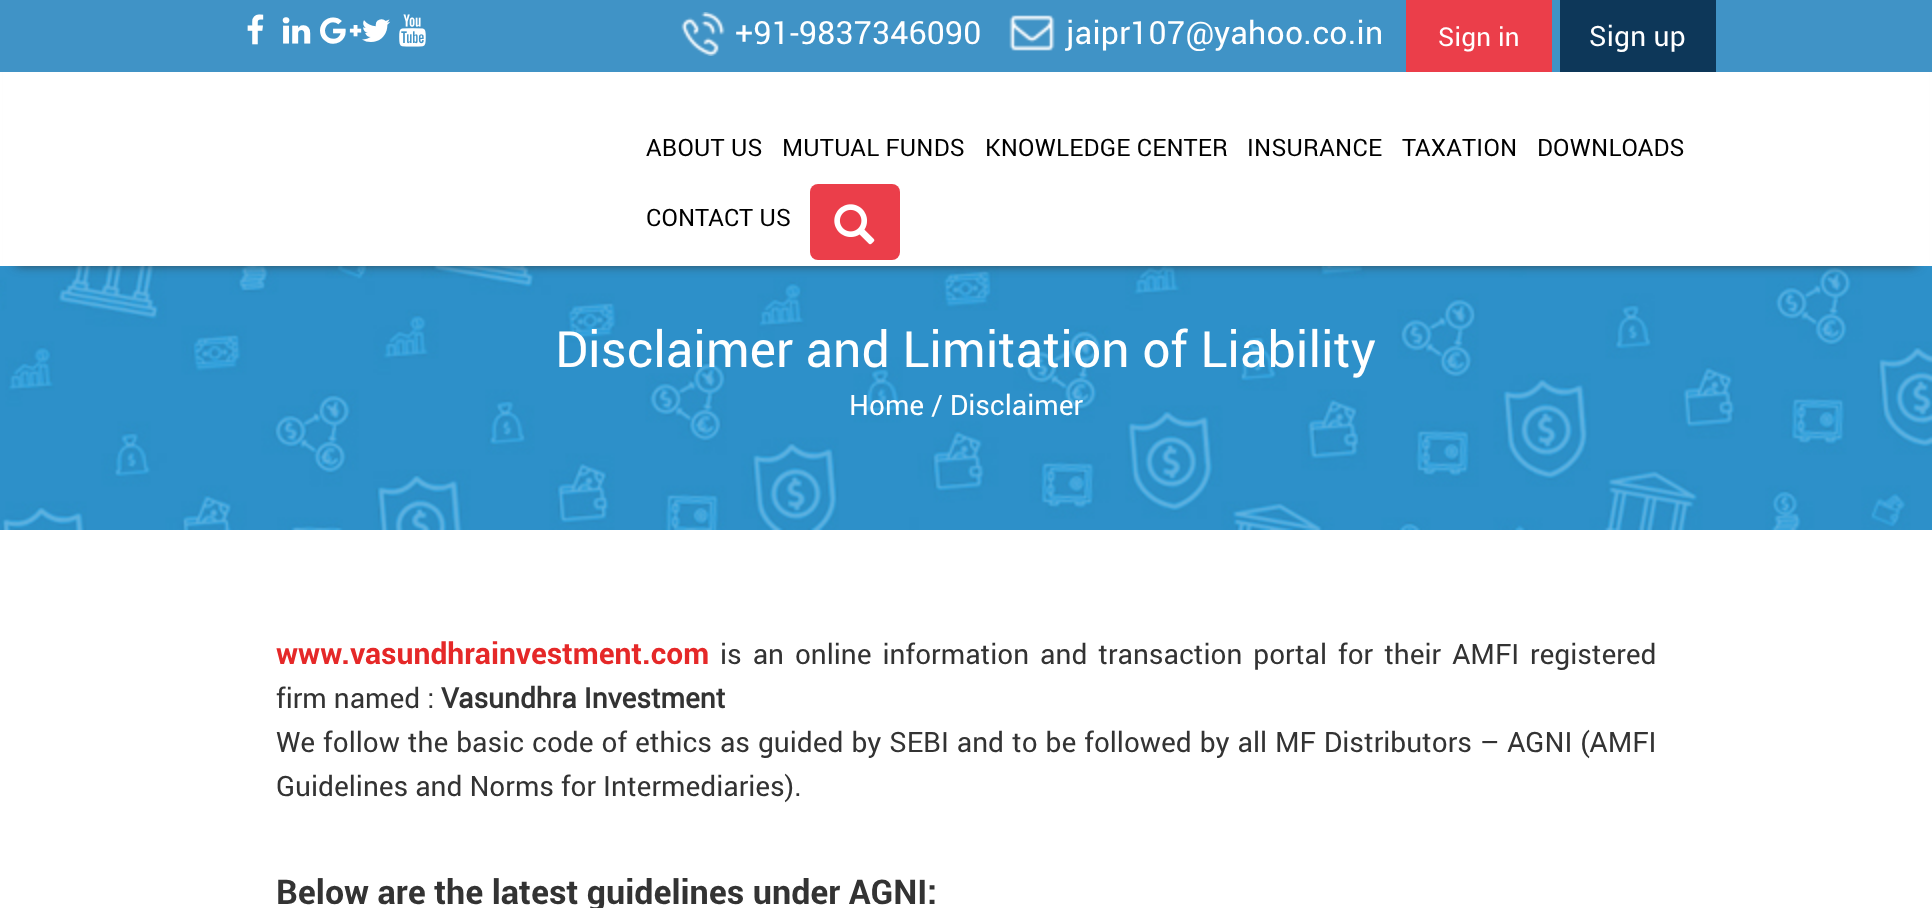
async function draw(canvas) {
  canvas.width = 1932;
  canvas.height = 908;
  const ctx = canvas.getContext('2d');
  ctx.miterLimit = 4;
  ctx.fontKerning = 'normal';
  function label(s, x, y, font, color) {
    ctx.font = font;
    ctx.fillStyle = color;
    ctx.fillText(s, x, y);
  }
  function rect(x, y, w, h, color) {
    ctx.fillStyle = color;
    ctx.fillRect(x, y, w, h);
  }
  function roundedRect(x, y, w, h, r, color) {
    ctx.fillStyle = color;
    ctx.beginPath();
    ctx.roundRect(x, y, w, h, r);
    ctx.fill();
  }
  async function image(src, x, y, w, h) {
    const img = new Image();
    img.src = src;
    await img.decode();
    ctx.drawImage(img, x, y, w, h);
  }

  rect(0, 0, 1932, 908, '#fff');
  await image('assets/img5.png', 0, 266, 1932, 264);
  ctx.fillStyle = '#2d2d2d';
  ctx.filter = 'blur(6px)';
  ctx.beginPath();
  ctx.rect(16, 30, 1900, 234);
  ctx.fill();
  ctx.filter = 'none';
  rect(3, 72, 1926, 194, '#fff');
  rect(0, 0, 1932, 72, '#4093c6');
  await image('assets/img1.png', 247, 14, 179, 33);
  await image('assets/img2.png', 681, 12, 44, 44);
  ctx.letterSpacing = '0.25px';
  label('+91-9837346090', 735, 44, '32px Roboto', '#fff');
  await image('assets/img3.png', 1009, 15, 46, 36);
  label('jaipr107@yahoo.co.in', 1066, 44, '32px Roboto', '#fff');
  rect(1406, 0, 146, 72, '#eb3e4a');
  label('Sign in', 1438, 46, '26px Roboto', '#fff');
  rect(1560, 0, 156, 72, '#0d3759');
  label('Sign up', 1589, 46, '28px Roboto', '#fff');
  label('ABOUT US', 646, 156, '24px Roboto', '#000');
  label('MUTUAL FUNDS', 782, 156, '24px Roboto', '#000');
  label('KNOWLEDGE CENTER', 985, 156, '24px Roboto', '#000');
  label('INSURANCE', 1247, 156, '24px Roboto', '#000');
  label('TAXATION', 1402, 156, '24px Roboto', '#000');
  label('DOWNLOADS', 1537, 156, '24px Roboto', '#000');
  label('CONTACT US', 646, 226, '24px Roboto', '#000');
  roundedRect(810, 184, 90, 76, 8, '#eb3e4a');
  await image('assets/img4.png', 834, 204, 41, 41);
  ctx.letterSpacing = '0px';
  label('Disclaimer and Limitation of Liability', 555, 367, '50px Roboto', '#fff');
  label('Home / Disclaimer', 849, 415, '28px Roboto', '#fff');
  label('www.vasundhrainvestment.com', 276, 664, 'bold 30px Roboto', '#e52828');
  ctx.wordSpacing = '4px';
  label('is an online information and transaction portal for their AMFI registered', 720, 664, '28px Roboto', '#333');
  ctx.wordSpacing = '0px';
  label('firm named :', 276, 708, '28px Roboto', '#333');
  label('Vasundhra Investment', 441, 708, 'bold 28px "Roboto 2"', '#333');
  ctx.wordSpacing = '1px';
  label('We follow the basic code of ethics as guided by SEBI and to be followed by all MF Distributors – AGNI (AMFI', 276, 752, '28px Roboto', '#333');
  ctx.wordSpacing = '0px';
  label('Guidelines and Norms for Intermediaries).', 276, 796, '28px Roboto', '#333');
  label('Below are the latest guidelines under AGNI:', 276, 904, 'bold 34px Roboto', '#333');
}

draw(document.querySelector('canvas'));
